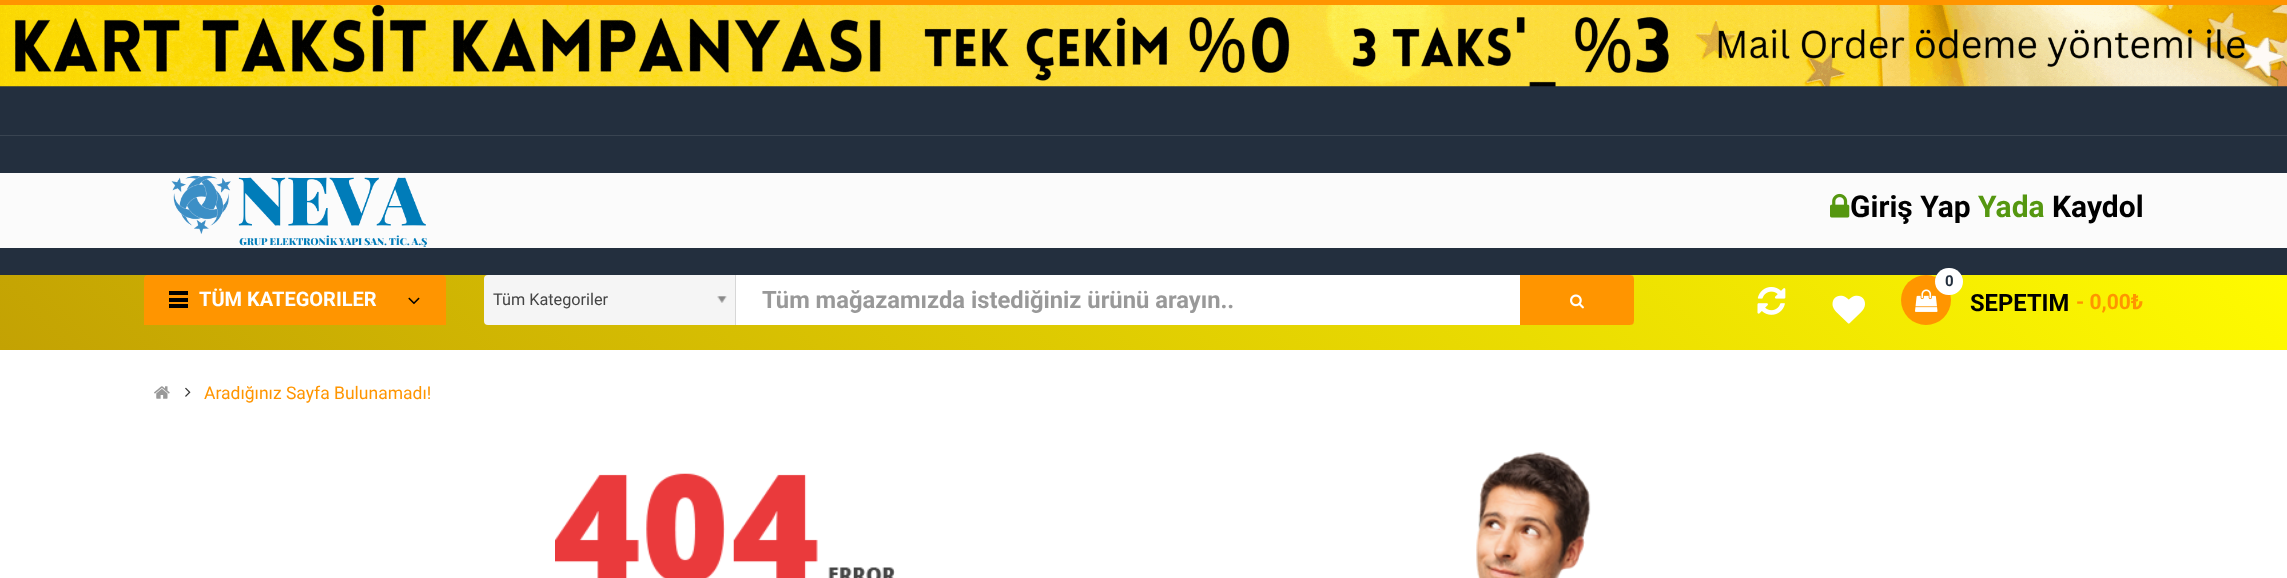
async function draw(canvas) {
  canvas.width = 2287;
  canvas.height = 578;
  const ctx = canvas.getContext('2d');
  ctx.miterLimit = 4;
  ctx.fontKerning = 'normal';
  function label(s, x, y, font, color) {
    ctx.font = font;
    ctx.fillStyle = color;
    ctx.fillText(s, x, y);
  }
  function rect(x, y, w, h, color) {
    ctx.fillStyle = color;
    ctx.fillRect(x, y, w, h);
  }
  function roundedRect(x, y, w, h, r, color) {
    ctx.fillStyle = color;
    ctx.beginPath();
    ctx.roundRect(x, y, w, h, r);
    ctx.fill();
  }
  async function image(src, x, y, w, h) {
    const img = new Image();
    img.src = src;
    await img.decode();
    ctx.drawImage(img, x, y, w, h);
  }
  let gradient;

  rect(0, 0, 2287, 578, '#fff');
  rect(0, 86, 2287, 189, '#232f3e');
  await image('assets/img1.png', 0, 5, 2287, 82);
  rect(0, 0, 2287, 5, '#ff9500');
  rect(0, 135, 2287, 1, '#394451');
  rect(0, 173, 2287, 75, '#fbfbfb');
  await image('assets/img2.png', 171, 175, 256, 73);
  await image('assets/img3.png', 1830, 193, 20, 25);
  label('Giriş Yap', 1850, 217, 'bold 30px Roboto', '#000');
  label('Yada', 1978, 217, 'bold 30px Roboto', '#559710');
  label('Kaydol', 2052, 217, 'bold 30px Roboto', '#000');
  gradient = ctx.createLinearGradient(553, 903, 1734, -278);
  gradient.addColorStop(0, '#c3a203');
  gradient.addColorStop(1, '#fffb00');
  ctx.fillStyle = gradient;
  ctx.fillRect(0, 275, 2287, 75);
  ctx.fillStyle = '#ff9500';
  ctx.beginPath();
  ctx.roundRect(144, 275, 302, 50, [4, 4, 0, 0]);
  ctx.fill();
  rect(169, 291, 19, 4, '#000');
  rect(169, 298, 19, 4, '#000');
  rect(169, 304, 19, 4, '#000');
  label('TÜM KATEGORILER', 199, 306, 'bold 20px Roboto', '#fff');
  await image('assets/img4.png', 408, 297, 12, 8);
  ctx.fillStyle = '#f5f5f5';
  ctx.beginPath();
  ctx.roundRect(484, 275, 252, 50, [4, 0, 0, 4]);
  ctx.fill();
  rect(735, 275, 1, 50, '#d7d7d7');
  label('Tüm Kategoriler', 493, 305, '16.25px Roboto', '#444');
  await image('assets/img5.png', 717, 296, 10, 7);
  ctx.fillStyle = '#fff';
  ctx.beginPath();
  ctx.roundRect(736, 275, 898, 50, [0, 5, 5, 0]);
  ctx.fill();
  label('Tüm mağazamızda istediğiniz ürünü arayın..', 762, 308, 'bold 23.75px Roboto', '#999');
  ctx.fillStyle = '#ff9500';
  ctx.beginPath();
  ctx.roundRect(1520, 275, 114, 50, [0, 4, 4, 0]);
  ctx.fill();
  await image('assets/img6.png', 1570, 294, 14, 15);
  await image('assets/img7.png', 1757, 287, 29, 28);
  await image('assets/img8.png', 1832, 295, 33, 29);
  ctx.beginPath();
  ctx.arc(1926, 300, 25, 0, 2 * Math.PI);
  ctx.fill();
  await image('assets/img9.png', 1915, 289, 23, 23);
  roundedRect(1935, 268, 28, 27, 13.5, '#fff');
  label('0', 1945, 286, 'bold 15px Roboto', '#232f3e');
  label('- 0,00₺', 2076, 309, 'bold 21px Roboto', '#ff9500');
  label('SEPETIM', 1970, 311, 'bold 23.75px Roboto', '#000');
  await image('assets/img10.png', 154, 386, 16, 13);
  await image('assets/img11.png', 185, 387, 6, 10);
  label('Aradığınız Sayfa Bulunamadı!', 204, 399, '17.5px Roboto', '#ff9500');
  await image('assets/img12.png', 555, 473, 340, 105);
  await image('assets/img13.png', 1476, 452, 115, 126);
}

draw(document.querySelector('canvas'));
